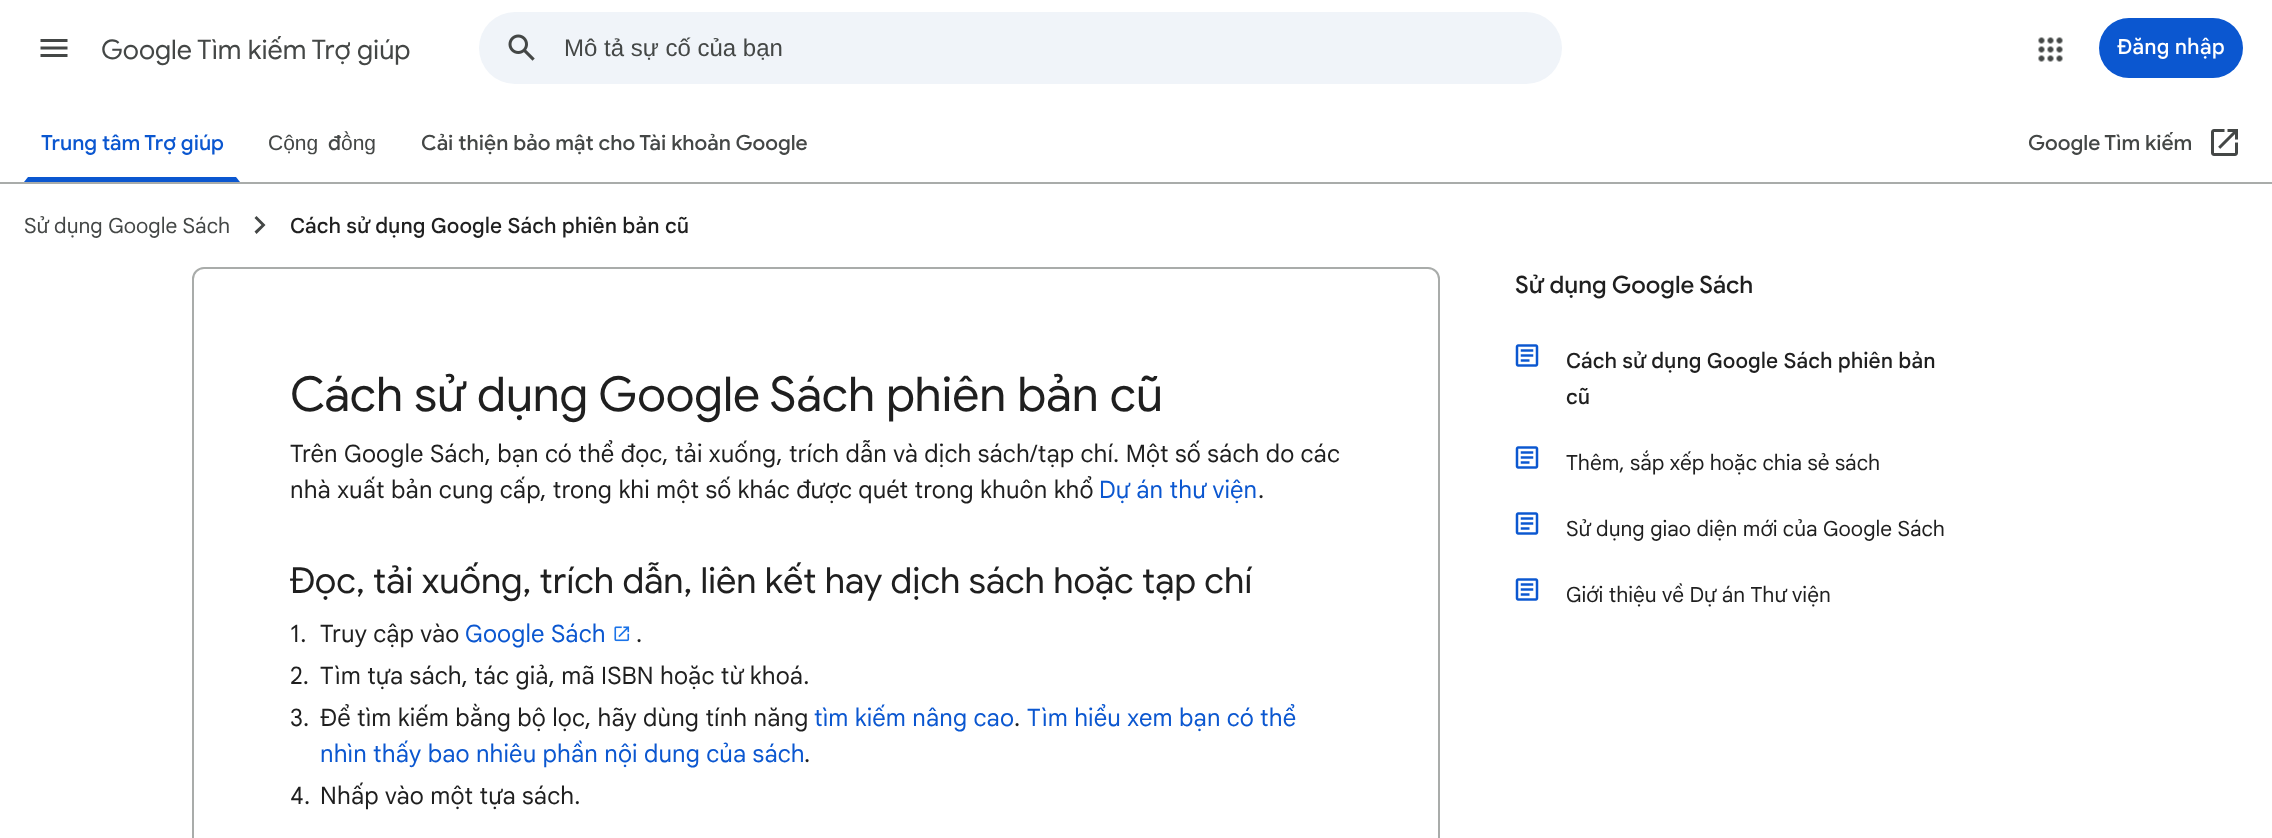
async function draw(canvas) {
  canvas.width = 2272;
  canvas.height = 838;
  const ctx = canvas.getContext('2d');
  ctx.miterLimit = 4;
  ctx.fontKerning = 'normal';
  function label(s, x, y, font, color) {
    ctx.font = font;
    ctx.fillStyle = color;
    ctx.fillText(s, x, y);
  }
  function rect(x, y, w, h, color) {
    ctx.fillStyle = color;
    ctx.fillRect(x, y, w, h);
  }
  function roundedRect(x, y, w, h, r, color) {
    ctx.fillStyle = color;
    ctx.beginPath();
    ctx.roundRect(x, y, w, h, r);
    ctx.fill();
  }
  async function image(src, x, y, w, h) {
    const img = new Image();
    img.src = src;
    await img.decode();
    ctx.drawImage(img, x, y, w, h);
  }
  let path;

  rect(0, 0, 2272, 838, '#fff');
  await image('assets/img1.png', 40, 39, 28, 18);
  label('Google Tìm kiếm Trợ giúp', 101, 59, '27px Google Sans', '#444746');
  roundedRect(479, 12, 1083, 72, 36, '#f0f4f9');
  await image('assets/img2.png', 508, 34, 27, 27);
  label('Mô tả sự cố của bạn', 564, 56, '24px Liberation Sans', '#444746');
  await image('assets/img3.png', 2038, 37, 25, 25);
  roundedRect(2099, 18, 144, 60, 30, '#0b57d0');
  label('Đăng nhập', 2117, 54, '500 21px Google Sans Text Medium', '#fff');
  rect(0, 182, 2272, 2, '#a9acaa');
  ctx.fillStyle = '#0b57d0';
  path = new Path2D('M240 182H24L28 177H236Z');
  ctx.fill(path);
  label('Trung tâm Trợ giúp', 41, 150, '500 21px Google Sans', '#0b57d0');
  label('Cộng', 268, 150, '21px Liberation Sans', '#444746');
  label('đ', 328, 150, '500 21px Google Sans', '#444746');
  label('ồng', 341, 150, '21px Liberation Sans', '#444746');
  label('Cải thiện bảo mật cho Tài khoản Google', 421, 150, '500 21px Google Sans', '#444746');
  label('Google Tìm kiếm', 2028, 150, '500 21px Google Sans', '#444746');
  await image('assets/img4.png', 2211, 129, 27, 27);
  label('Sử dụng Google Sách', 24, 233, '21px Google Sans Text', '#444746');
  path = new Path2D('M254.5 231.5L261.5 225L254.5 218L256.5 216L265.5 225L256.5 234Z');
  ctx.fill(path);
  label('Cách sử dụng Google Sách phiên bản cũ', 290, 233, '500 21px Google Sans Text Medium', '#1f1f1f');
  ctx.beginPath();
  ctx.roundRect(193, 268, 1246, 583, 11);
  ctx.strokeStyle = '#a9acaa';
  ctx.lineWidth = 2;
  ctx.stroke();
  label('Cách sử dụng Google Sách phiên bản cũ', 290, 411, '48px Google Sans', '#1f1f1f');
  ctx.letterSpacing = '0.12px';
  label('Trên Google Sách, bạn có thể đọc, tải xuống, trích dẫn và dịch sách/tạp chí. Một số sách do các', 290, 462, '24px Google Sans Text', '#1f1f1f');
  label('nhà xuất bản cung cấp, trong khi một số khác được quét trong khuôn khổ', 290, 498, '24px Google Sans Text', '#1f1f1f');
  label('Dự án thư viện', 1099, 498, '24px Google Sans Text', '#0b57d0');
  label('.', 1258, 498, '24px Google Sans Text', '#1f1f1f');
  ctx.letterSpacing = '0px';
  label('Đọc, tải xuống, trích dẫn, liên kết hay dịch sách hoặc tạp chí', 290, 593, '36px Google Sans', '#1f1f1f');
  ctx.letterSpacing = '0.12px';
  label('1.', 290, 642, '24px Google Sans Text', '#1f1f1f');
  label('Truy cập vào', 320, 642, '24px Google Sans Text', '#1f1f1f');
  label('Google Sách', 465, 642, '24px Google Sans Text', '#0b57d0');
  await image('assets/img5.png', 614, 626, 16, 16);
  label('.', 636, 642, '24px Google Sans Text', '#1f1f1f');
  label('2.', 290, 684, '24px Google Sans Text', '#1f1f1f');
  label('Tìm tựa sách, tác giả, mã ISBN hoặc từ khoá.', 320, 684, '24px Google Sans Text', '#1f1f1f');
  label('3.', 290, 726, '24px Google Sans Text', '#1f1f1f');
  label('Để tìm kiếm bằng bộ lọc, hãy dùng tính năng', 320, 726, '24px Google Sans Text', '#1f1f1f');
  label('tìm kiếm nâng cao', 814, 726, '24px Google Sans Text', '#0b57d0');
  label('.', 1014, 726, '24px Google Sans Text', '#1f1f1f');
  label('Tìm hiểu xem bạn có thể', 1027, 726, '24px Google Sans Text', '#0b57d0');
  label('nhìn thấy bao nhiêu phần nội dung của sách', 320, 762, '24px Google Sans Text', '#0b57d0');
  label('.', 804, 762, '24px Google Sans Text', '#1f1f1f');
  label('4.', 290, 804, '24px Google Sans Text', '#1f1f1f');
  label('Nhấp vào một tựa sách.', 320, 804, '24px Google Sans Text', '#1f1f1f');
  ctx.letterSpacing = '0px';
  label('Sử dụng Google Sách', 1515, 293, '500 24px Google Sans', '#1f1f1f');
  await image('assets/img6.png', 1515, 344, 24, 23);
  label('Cách sử dụng Google Sách phiên bản', 1566, 368, '500 21px Google Sans Text Medium', '#1f1f1f');
  label('cũ', 1566, 404, '500 21px Google Sans Text Medium', '#1f1f1f');
  await image('assets/img6.png', 1515, 446, 24, 23);
  label('Thêm, sắp xếp hoặc chia sẻ sách', 1566, 470, '21px Google Sans Text', '#1f1f1f');
  await image('assets/img6.png', 1515, 512, 24, 23);
  label('Sử dụng giao diện mới của Google Sách', 1566, 536, '21px Google Sans Text', '#1f1f1f');
  await image('assets/img6.png', 1515, 578, 24, 23);
  label('Giới thiệu về Dự án Thư viện', 1566, 602, '21px Google Sans Text', '#1f1f1f');
}

draw(document.querySelector('canvas'));
